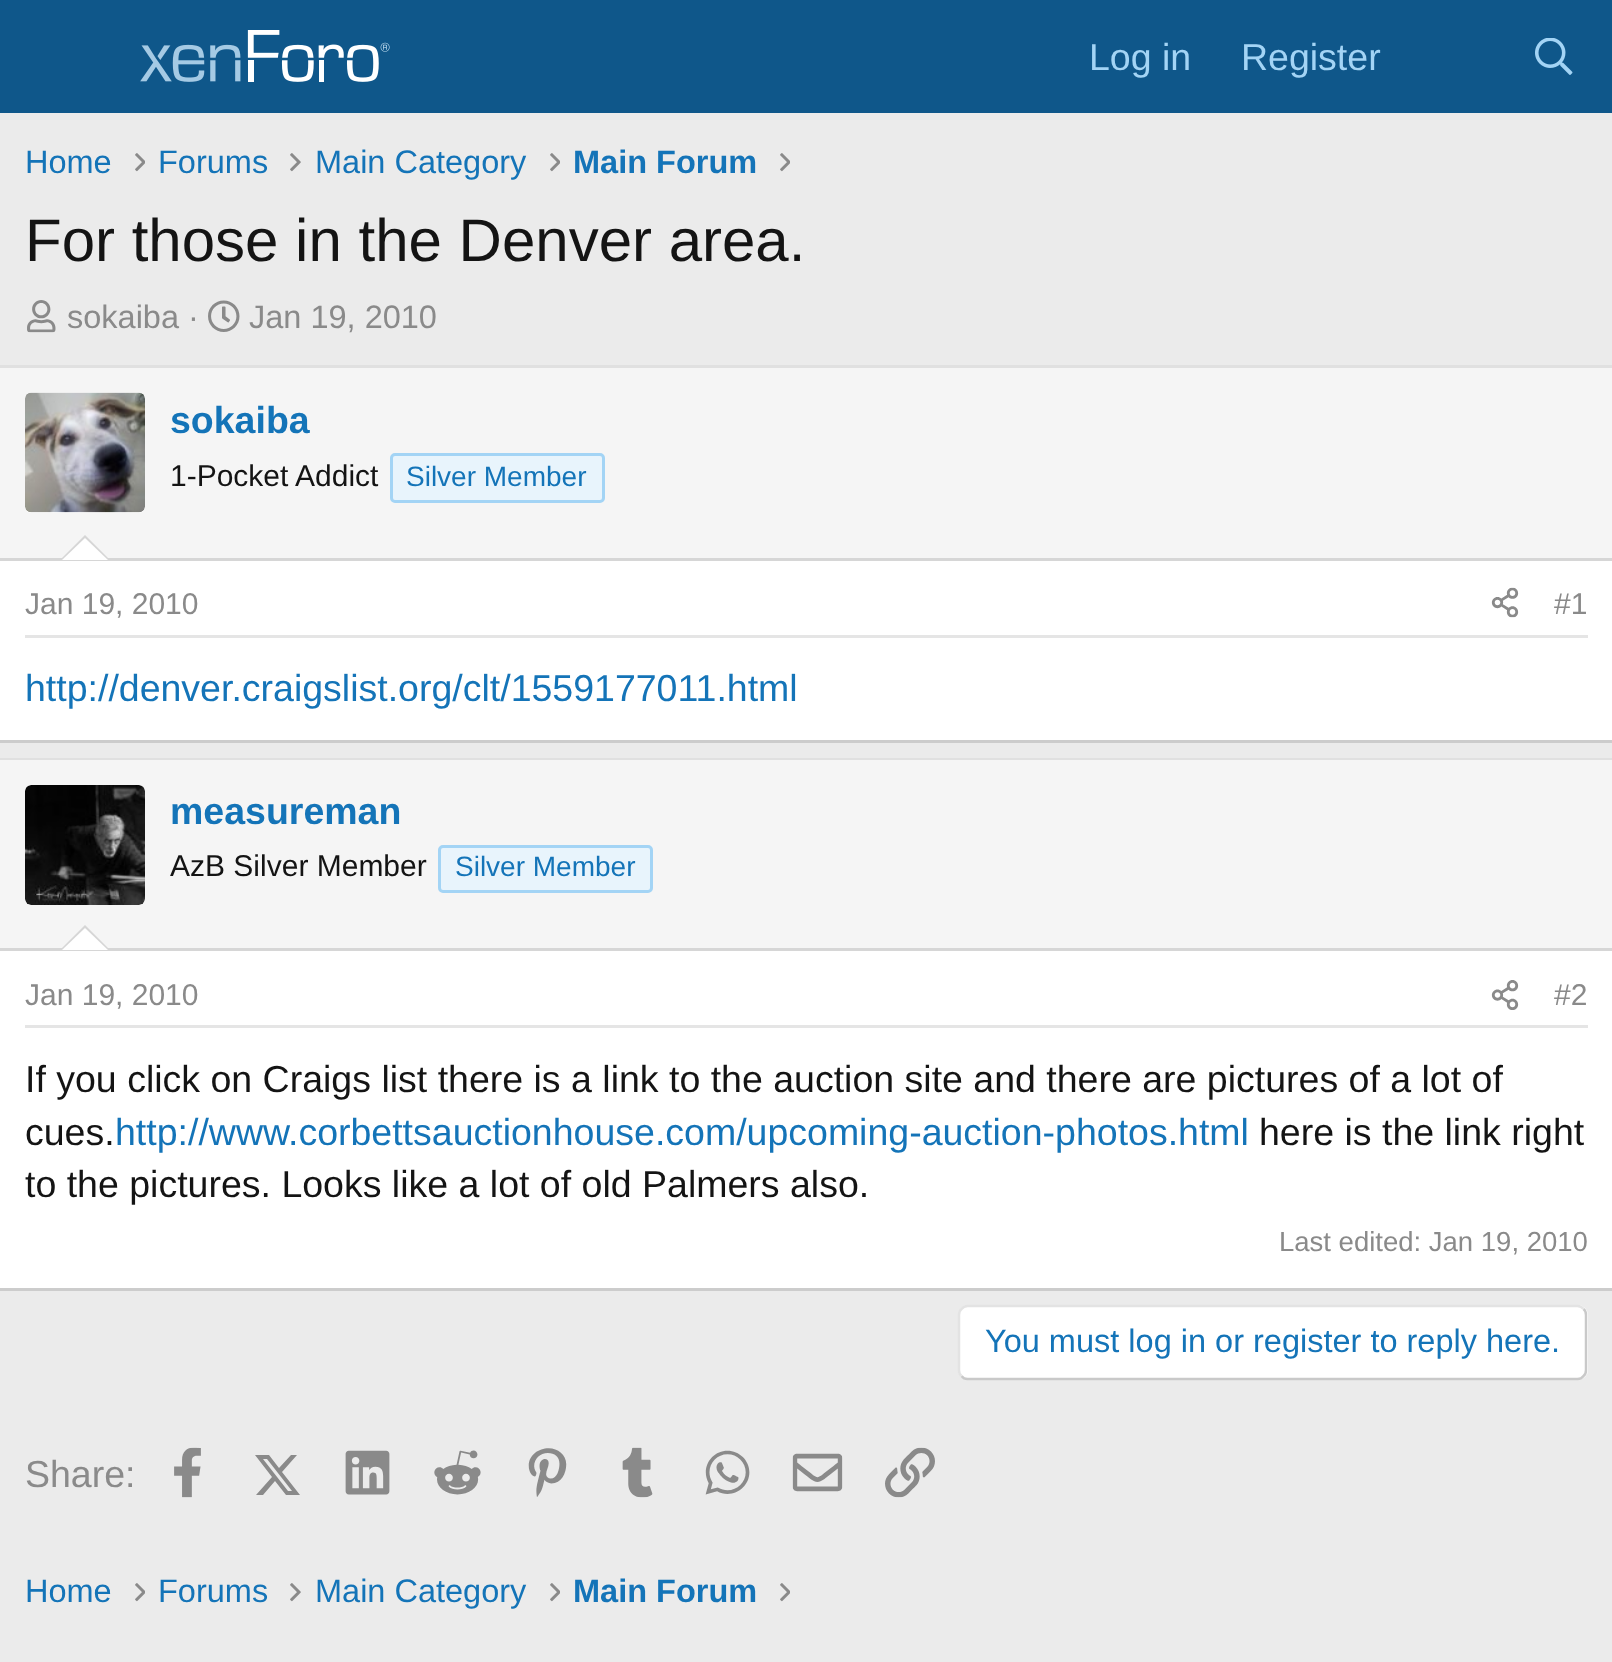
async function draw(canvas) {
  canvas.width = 1612;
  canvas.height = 1662;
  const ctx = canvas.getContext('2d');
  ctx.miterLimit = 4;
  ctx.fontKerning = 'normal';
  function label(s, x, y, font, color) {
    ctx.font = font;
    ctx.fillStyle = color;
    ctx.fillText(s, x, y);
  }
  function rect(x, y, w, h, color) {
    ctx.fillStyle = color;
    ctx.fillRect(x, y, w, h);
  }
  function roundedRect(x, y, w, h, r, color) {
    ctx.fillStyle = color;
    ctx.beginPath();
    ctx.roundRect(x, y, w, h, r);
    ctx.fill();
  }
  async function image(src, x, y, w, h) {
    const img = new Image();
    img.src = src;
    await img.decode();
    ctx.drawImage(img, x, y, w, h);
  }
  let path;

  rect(0, 0, 1612, 1662, '#ebebeb');
  rect(0, 0, 1612, 113, '#0f578a');
  await image('assets/img1.png', 140, 30, 250, 52);
  label('Log in', 1089, 70, '37.5px Liberation Sans', '#a3d4f5');
  label('Register', 1241, 70, '37.5px Liberation Sans', '#a3d4f5');
  await image('assets/img2.png', 1535, 38, 38, 37);
  label('Home', 25, 173, '32.5px Liberation Sans', '#1474b8');
  await image('assets/img3.png', 135, 153, 10, 19);
  label('Forums', 158, 173, '32.5px Liberation Sans', '#1474b8');
  await image('assets/img4.png', 290, 153, 11, 19);
  label('Main Category', 315, 173, '32.5px Liberation Sans', '#1474b8');
  await image('assets/img3.png', 550, 153, 10, 19);
  label('Main Forum', 573, 173, 'bold 32.5px Liberation Sans', '#1474b8');
  await image('assets/img3.png', 780, 153, 10, 19);
  label('For those in the Denver area.', 25, 261, '60px Liberation Sans', '#141414');
  await image('assets/img5.png', 27, 300, 29, 33);
  label('sokaiba ·', 67, 328, '32.5px Liberation Sans', '#8a8a8a');
  await image('assets/img6.png', 208, 300, 32, 32);
  label('Jan 19, 2010', 249, 328, '32.5px Liberation Sans', '#8a8a8a');
  rect(0, 561, 1612, 179, '#fff');
  rect(0, 365, 1612, 3, '#e0e0e0');
  rect(0, 740, 1612, 3, '#ccc');
  rect(0, 368, 1612, 190, '#f5f5f5');
  rect(0, 558, 1612, 3, '#d6d6d6');
  roundedRect(25, 393, 120, 120, 6, '#fff');
  await image('assets/img7.png', 25, 392, 120, 121);
  label('sokaiba', 170, 433, 'bold 37.5px Liberation Sans', '#1474b8');
  label('1-Pocket Addict', 170, 486, '30px Liberation Sans', '#141414');
  ctx.fillStyle = '#e8f4fc';
  ctx.beginPath();
  ctx.roundRect(391.5, 454.5, 212, 47, 3.5);
  ctx.fill();
  ctx.strokeStyle = '#a3d4f5';
  ctx.lineWidth = 3;
  ctx.stroke();
  label('Silver Member', 406, 486, '28px Liberation Sans', '#1474b8');
  ctx.fillStyle = '#d6d6d6';
  path = new Path2D('M110 560H60L85 535Z');
  ctx.fill(path);
  ctx.fillStyle = '#fff';
  path = new Path2D('M108 560H62L85 538Z');
  ctx.fill(path);
  rect(25, 635, 1563, 3, '#e5e5e5');
  label('Jan 19, 2010', 25, 614, '30px Liberation Sans', '#8a8a8a');
  await image('assets/img8.png', 1491, 587, 28, 31);
  label('#1', 1554, 614, '30px Liberation Sans', '#8a8a8a');
  label('http://denver.craigslist.org/clt/1559177011.html', 25, 701, '37.5px Liberation Sans', '#1474b8');
  rect(0, 951, 1612, 337, '#fff');
  rect(0, 758, 1612, 2, '#e0e0e0');
  rect(0, 1288, 1612, 3, '#ccc');
  rect(0, 760, 1612, 188, '#f5f5f5');
  rect(0, 948, 1612, 3, '#d6d6d6');
  roundedRect(25, 785, 120, 120, 6, '#fff');
  await image('assets/img9.png', 25, 785, 120, 120);
  label('measureman', 170, 824, 'bold 37.5px Liberation Sans', '#1474b8');
  label('AzB Silver Member', 170, 876, '30px Liberation Sans', '#141414');
  ctx.fillStyle = '#e8f4fc';
  ctx.beginPath();
  ctx.roundRect(439.5, 846.5, 212, 45, 3.5);
  ctx.fill();
  ctx.stroke();
  label('Silver Member', 455, 876, '28px Liberation Sans', '#1474b8');
  ctx.fillStyle = '#d6d6d6';
  path = new Path2D('M110 950H60L85 925Z');
  ctx.fill(path);
  ctx.fillStyle = '#fff';
  path = new Path2D('M108 950H62L85 928Z');
  ctx.fill(path);
  rect(25, 1025, 1563, 3, '#e5e5e5');
  label('Jan 19, 2010', 25, 1005, '30px Liberation Sans', '#8a8a8a');
  await image('assets/img10.png', 1491, 980, 28, 30);
  label('#2', 1554, 1005, '30px Liberation Sans', '#8a8a8a');
  label('If you click on Craigs list there is a link to the auction site and there are pictures of a lot of', 25, 1092, '37.5px Liberation Sans', '#141414');
  label('cues.', 25, 1145, '37.5px Liberation Sans', '#141414');
  label('http://www.corbettsauctionhouse.com/upcoming-auction-photos.html', 115, 1145, '37.5px Liberation Sans', '#1474b8');
  label('here is the link right', 1259, 1145, '37.5px Liberation Sans', '#141414');
  label('to the pictures. Looks like a lot of old Palmers also.', 25, 1197, '37.5px Liberation Sans', '#141414');
  label('Last edited: Jan 19, 2010', 1279, 1251, '27.5px Liberation Sans', '#8a8a8a');
  roundedRect(958, 1305, 630, 75, 10, '#fff');
  path = new Path2D('M1583.5 1309C1585.5 1310.5 1586 1312.5 1586 1315V1370C1586 1372.5 1585.5 1374.5 1583.5 1376C1582 1378 1580 1379 1577.5 1379H967.5C965 1379 963 1378 961.5 1376');
  ctx.strokeStyle = '#c9c9c9';
  ctx.lineWidth = 2.5;
  ctx.stroke(path);
  path = new Path2D('M961.5 1376C959.5 1374.5 959 1372.5 959 1370V1315C959 1312.5 959.5 1310.5 961.5 1309C963 1307 965 1306 967.5 1306H1577.5C1580 1306 1582 1307 1583.5 1309');
  ctx.strokeStyle = '#e3e3e3';
  ctx.stroke(path);
  label('You must log in or register to reply here.', 985, 1352, '32.5px Liberation Sans', '#1474b8');
  label('Share:', 25, 1487, '37.5px Liberation Sans', '#8a8a8a');
  await image('assets/img11.png', 174, 1447, 27, 51);
  path = new Path2D('M291 1455H297L282 1472L300 1495H286L275 1481L263 1495H256L272 1477L255 1455H269L279 1468ZM288 1491H292L267 1459H263Z');
  ctx.fill(path);
  await image('assets/img12.png', 345, 1450, 45, 45);
  await image('assets/img13.png', 434, 1450, 47, 45);
  await image('assets/img14.png', 528, 1448, 39, 49);
  await image('assets/img15.png', 622, 1447, 31, 51);
  await image('assets/img16.png', 705, 1450, 45, 45);
  await image('assets/img17.png', 792, 1453, 51, 39);
  await image('assets/img18.png', 885, 1447, 50, 51);
  label('Home', 25, 1602, '32.5px Liberation Sans', '#1474b8');
  await image('assets/img3.png', 135, 1583, 10, 19);
  label('Forums', 158, 1602, '32.5px Liberation Sans', '#1474b8');
  await image('assets/img4.png', 290, 1583, 11, 19);
  label('Main Category', 315, 1602, '32.5px Liberation Sans', '#1474b8');
  await image('assets/img3.png', 550, 1583, 10, 19);
  label('Main Forum', 573, 1602, 'bold 32.5px Liberation Sans', '#1474b8');
  await image('assets/img3.png', 780, 1583, 10, 19);
}

draw(document.querySelector('canvas'));
